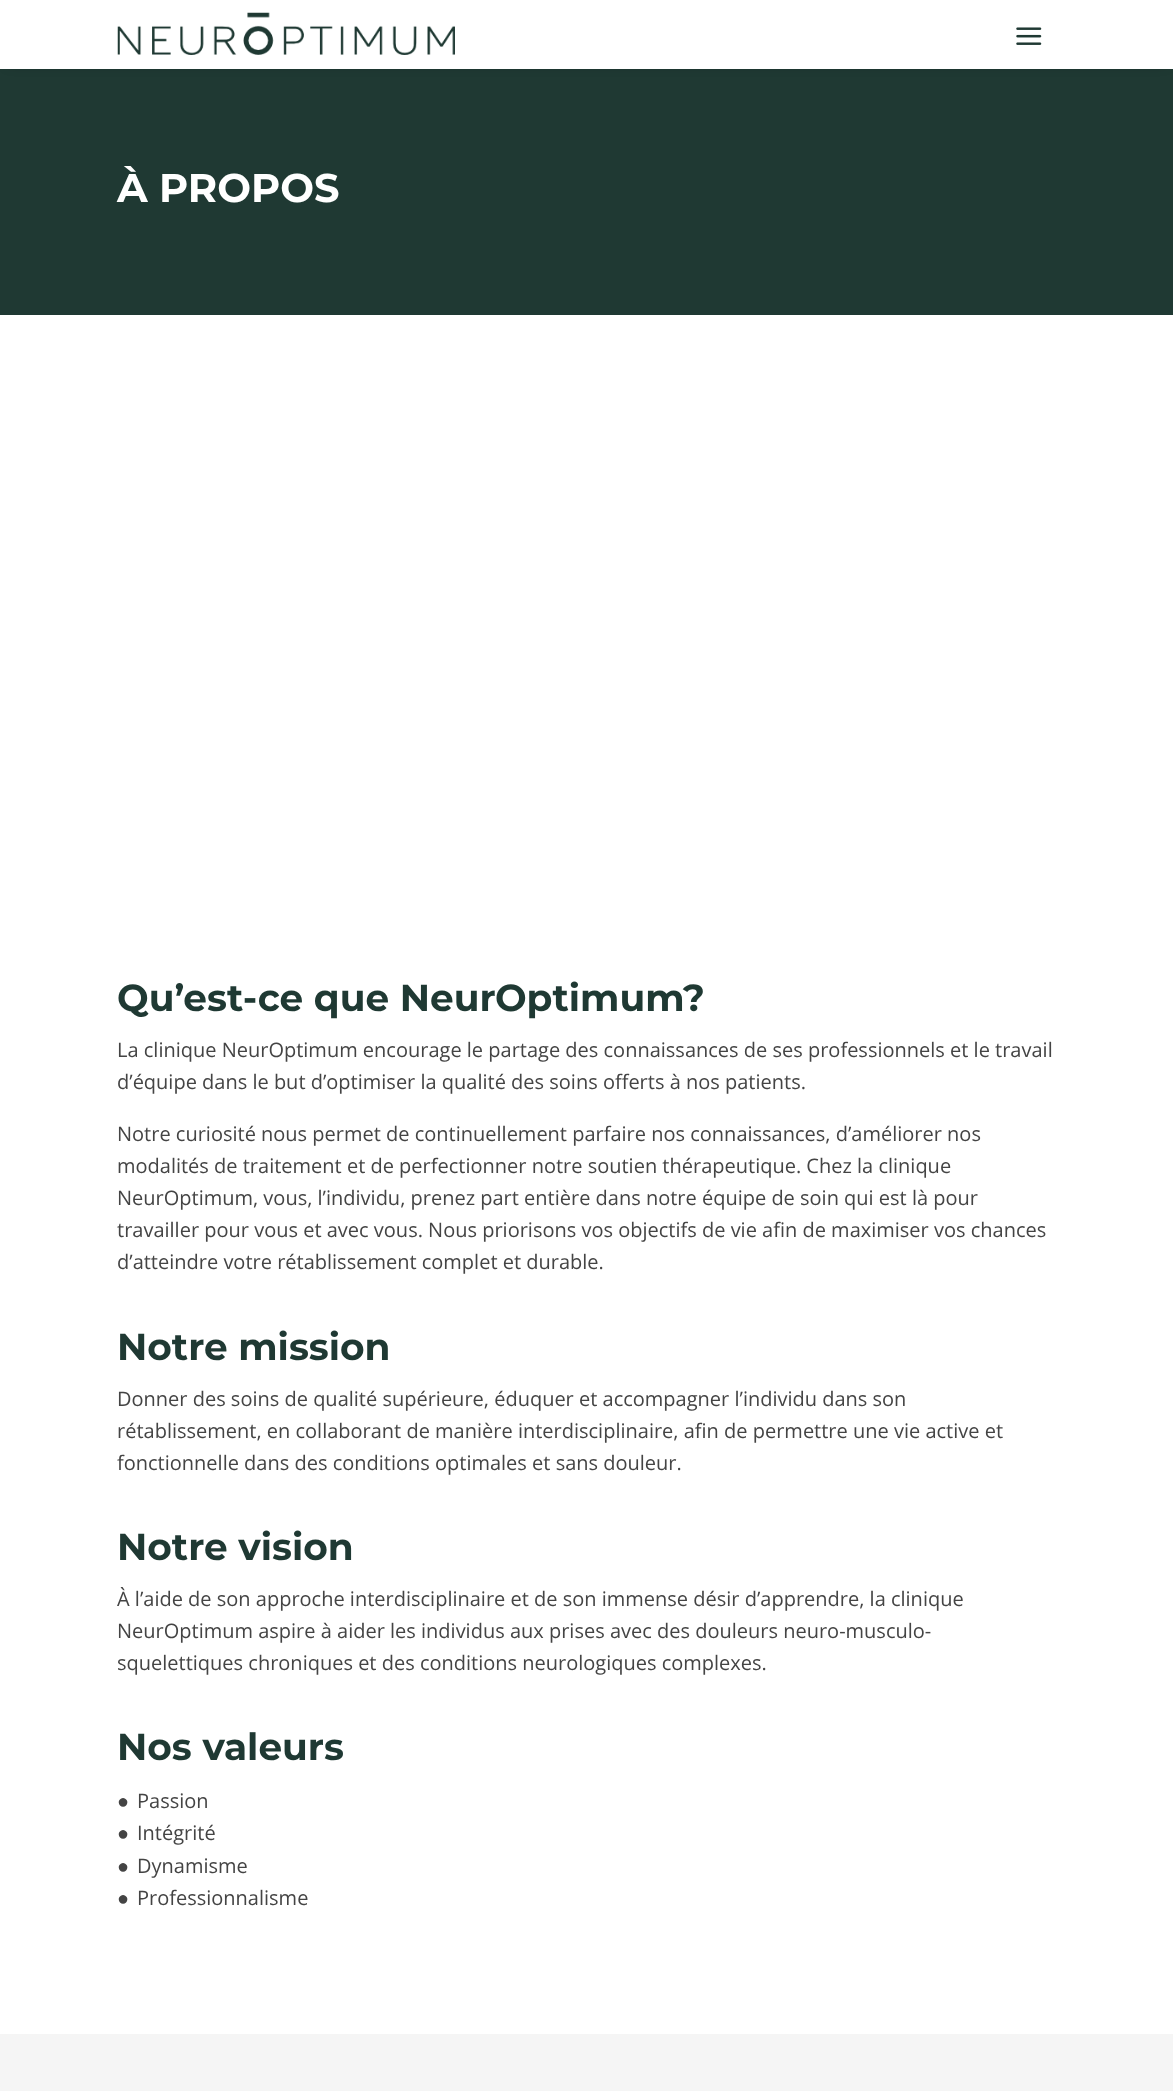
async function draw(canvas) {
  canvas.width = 1173;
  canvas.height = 2091;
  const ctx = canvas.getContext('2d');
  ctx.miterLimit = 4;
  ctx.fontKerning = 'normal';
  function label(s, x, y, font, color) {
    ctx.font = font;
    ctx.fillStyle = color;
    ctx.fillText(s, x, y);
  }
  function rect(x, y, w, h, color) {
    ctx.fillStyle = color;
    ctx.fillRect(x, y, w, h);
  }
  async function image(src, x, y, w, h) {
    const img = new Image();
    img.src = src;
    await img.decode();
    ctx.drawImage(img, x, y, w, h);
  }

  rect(0, 0, 1173, 2091, '#fff');
  rect(0, 69, 1173, 246, '#1f3933');
  ctx.fillStyle = '#0000004d';
  ctx.filter = 'blur(6px)';
  ctx.beginPath();
  ctx.rect(8, 10, 1158, 54);
  ctx.fill();
  ctx.filter = 'none';
  rect(0, 0, 1173, 69, '#fff');
  await image('assets/img1.png', 117, 12, 338, 43);
  await image('assets/img2.png', 1016, 27, 26, 18);
  label('À PROPOS', 117, 202, '100 40px Montserrat', '#fff');
  label('Qu’est-ce que NeurOptimum?', 117, 1011, '100 37.5px Montserrat', '#1f3933');
  label('La clinique NeurOptimum encourage le partage des connaissances de ses professionnels et le travail', 117, 1057, '20px Open Sans', '#444');
  label('d’équipe dans le but d’optimiser la qualité des soins offerts à nos patients.', 117, 1089, '20px Open Sans', '#444');
  label('Notre curiosité nous permet de continuellement parfaire nos connaissances, d’améliorer nos', 117, 1141, '20px Open Sans', '#444');
  label('modalités de traitement et de perfectionner notre soutien thérapeutique. Chez la clinique', 117, 1173, '20px Open Sans', '#444');
  label('NeurOptimum, vous, l’individu, prenez part entière dans notre équipe de soin qui est là pour', 117, 1205, '20px Open Sans', '#444');
  label('travailler pour vous et avec vous. Nous priorisons vos objectifs de vie afin de maximiser vos chances', 117, 1237, '20px Open Sans', '#444');
  label('d’atteindre votre rétablissement complet et durable.', 117, 1269, '20px Open Sans', '#444');
  label('Notre mission', 117, 1360, '100 37.5px Montserrat', '#1f3933');
  label('Donner des soins de qualité supérieure, éduquer et accompagner l’individu dans son', 117, 1406, '20px Open Sans', '#444');
  label('rétablissement, en collaborant de manière interdisciplinaire, afin de permettre une vie active et', 117, 1438, '20px Open Sans', '#444');
  label('fonctionnelle dans des conditions optimales et sans douleur.', 117, 1470, '20px Open Sans', '#444');
  label('Notre vision', 117, 1560, '100 37.5px Montserrat', '#1f3933');
  label('À l’aide de son approche interdisciplinaire et de son immense désir d’apprendre, la clinique', 117, 1606, '20px Open Sans', '#444');
  label('NeurOptimum aspire à aider les individus aux prises avec des douleurs neuro-musculo-', 117, 1638, '20px Open Sans', '#444');
  label('squelettiques chroniques et des conditions neurologiques complexes.', 117, 1670, '20px Open Sans', '#444');
  label('Nos valeurs', 117, 1760, '100 37.5px Montserrat', '#1f3933');
  label('●', 117, 1808, '20px Liberation Sans', '#444');
  label('Passion', 137, 1808, '20px Open Sans', '#444');
  label('●', 117, 1840, '20px Liberation Sans', '#444');
  label('Intégrité', 137, 1840, '20px Open Sans', '#444');
  label('●', 117, 1873, '20px Liberation Sans', '#444');
  label('Dynamisme', 137, 1873, '20px Open Sans', '#444');
  label('●', 117, 1905, '20px Liberation Sans', '#444');
  label('Professionnalisme', 137, 1905, '20px Open Sans', '#444');
  rect(0, 2034, 1173, 57, '#f5f5f5');
}

draw(document.querySelector('canvas'));
